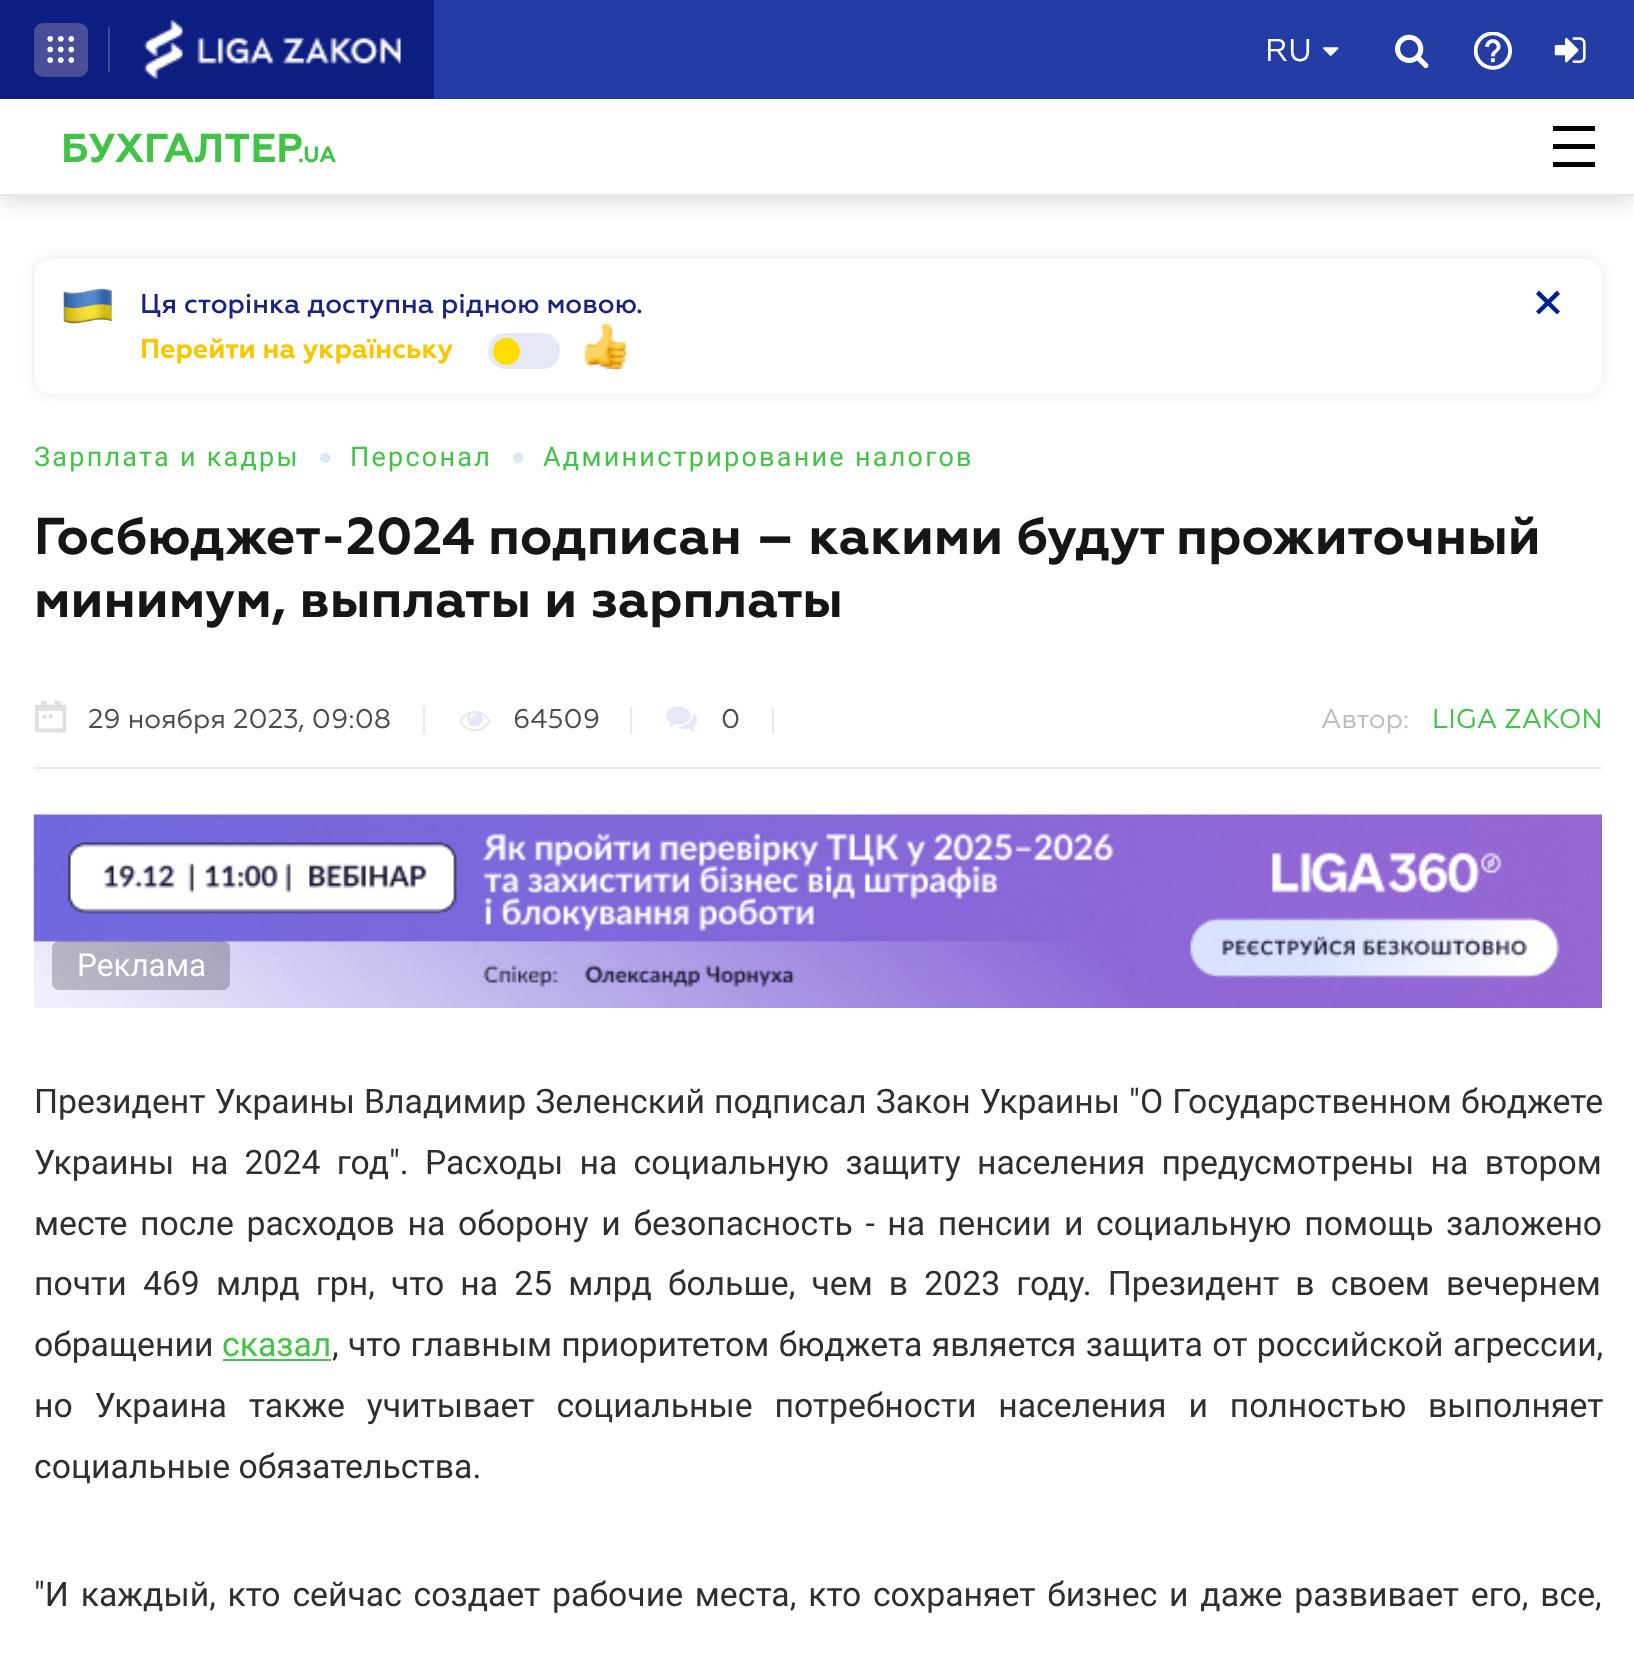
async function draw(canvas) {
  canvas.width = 1634;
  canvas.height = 1659;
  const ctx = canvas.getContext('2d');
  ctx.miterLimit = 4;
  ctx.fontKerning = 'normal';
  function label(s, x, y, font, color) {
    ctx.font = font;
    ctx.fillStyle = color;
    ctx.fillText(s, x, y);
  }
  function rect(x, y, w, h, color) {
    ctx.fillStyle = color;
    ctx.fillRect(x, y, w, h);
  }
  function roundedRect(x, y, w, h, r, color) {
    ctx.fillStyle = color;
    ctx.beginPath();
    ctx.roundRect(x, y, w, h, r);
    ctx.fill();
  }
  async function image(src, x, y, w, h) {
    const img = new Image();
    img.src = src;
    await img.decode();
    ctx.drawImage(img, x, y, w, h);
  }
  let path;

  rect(0, 0, 1634, 1659, '#fff');
  ctx.fillStyle = '#00000026';
  ctx.filter = 'blur(11px)';
  ctx.beginPath();
  ctx.rect(0, 104, 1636, 96);
  ctx.fill();
  ctx.filter = 'none';
  rect(434, 0, 1200, 99, '#243da4');
  rect(0, 0, 434, 99, '#0e1d82');
  roundedRect(34, 23, 54, 54, 9, '#484f98');
  await image('assets/img1.png', 47, 36, 27, 27);
  rect(108, 27, 2, 45, '#3e4a9b');
  await image('assets/img2.png', 143, 20, 258, 59);
  label('RU', 1265, 61, '31.5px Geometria', '#fff');
  await image('assets/img3.png', 1323, 47, 16, 9);
  await image('assets/img4.png', 1395, 34, 34, 35);
  await image('assets/img5.png', 1474, 32, 38, 38);
  await image('assets/img6.png', 1554, 37, 32, 26);
  rect(0, 99, 1634, 95, '#fff');
  rect(0, 194, 1634, 2, '#e6e6e6');
  label('БУХГАЛТЕР', 61, 162, 'bold 40.5px Geometria', '#42c348');
  label('.UA', 298, 162, 'bold 22px Geometria', '#42c348');
  rect(1553, 126, 42, 5, '#000');
  rect(1553, 144, 42, 5, '#000');
  rect(1553, 162, 42, 5, '#000');
  ctx.fillStyle = '#00000017';
  ctx.filter = 'blur(7px)';
  ctx.beginPath();
  ctx.roundRect(34, 259, 1568, 135, 18);
  ctx.fill();
  ctx.filter = 'none';
  roundedRect(34, 259, 1568, 135, 18, '#fff');
  await image('assets/img7.png', 63, 288, 50, 36);
  label('Ця сторінка доступна рідною мовою.', 140, 313, '500 27px Geometria', '#1a237e');
  label('Перейти на українську', 140, 358, 'bold 27px Geometria', '#f8c700');
  roundedRect(488, 333, 72, 36, 18, '#e6e8f7');
  ctx.fillStyle = '#ffdd01';
  ctx.beginPath();
  ctx.arc(506.5, 351.5, 13.5, 0, 2 * Math.PI);
  ctx.fill();
  await image('assets/img8.png', 583, 324, 45, 45);
  ctx.fillStyle = '#001f8e';
  path = new Path2D('M1557 290.5L1560 294L1539 314.5L1536 311.5Z');
  ctx.fill(path);
  path = new Path2D('M1536 294L1539 290.5L1560 311.5L1557 314.5Z');
  ctx.fill(path);
  rect(34, 767, 1568, 2, '#e6e8f7');
  ctx.letterSpacing = '2.25px';
  label('Зарплата и кадры', 34, 466, '27px Roboto', '#42c348');
  ctx.letterSpacing = '0px';
  label('•', 316, 475, '45px Geometria', '#d9e9f5');
  ctx.letterSpacing = '2.25px';
  label('Персонал', 350, 466, '27px Roboto', '#42c348');
  ctx.letterSpacing = '0px';
  label('•', 509, 475, '45px Geometria', '#d9e9f5');
  ctx.letterSpacing = '2.25px';
  label('Администрирование налогов', 543, 466, '27px Roboto', '#42c348');
  ctx.letterSpacing = '0px';
  label('Госбюджет-2024 подписан – какими будут прожиточный', 34, 554, 'bold 51.75px Geometria', '#161616');
  label('минимум, выплаты и зарплаты', 34, 617, 'bold 51.75px Geometria', '#161616');
  await image('assets/img9.png', 35, 700, 32, 33);
  label('29 ноября 2023, 09:08', 88, 728, '27px Geometria', '#4c4c4c');
  rect(423, 707, 2, 27, '#e6e8f7');
  await image('assets/img10.png', 459, 711, 32, 21);
  label('64509', 513, 728, '27px Geometria', '#4c4c4c');
  rect(630, 707, 2, 27, '#e6e8f7');
  await image('assets/img11.png', 666, 706, 32, 26);
  label('0', 721, 728, '27px Geometria', '#4c4c4c');
  rect(772, 707, 2, 27, '#e6e8f7');
  label('Автор:', 1321, 728, '27px Geometria', '#bdbdbd');
  label('LIGA ZAKON', 1432, 728, '27px Geometria', '#42c348');
  await image('assets/img12.png', 33, 814, 1569, 194);
  roundedRect(52, 941, 178, 49, 7, '#00000038');
  label('Реклама', 77, 976, '31.5px Roboto', '#fff');
  ctx.wordSpacing = '0.75px';
  label('Президент Украины Владимир Зеленский подписал Закон Украины "О Государственном бюджете', 34, 1113, '33.75px Roboto', '#2f2f2f');
  ctx.wordSpacing = '7.9px';
  label('Украины на 2024 год". Расходы на социальную защиту населения предусмотрены на втором', 34, 1174, '33.75px Roboto', '#2f2f2f');
  ctx.wordSpacing = '4.25px';
  label('месте после расходов на оборону и безопасность - на пенсии и социальную помощь заложено', 34, 1235, '33.75px Roboto', '#2f2f2f');
  ctx.wordSpacing = '7.75px';
  label('почти 469 млрд грн, что на 25 млрд больше, чем в 2023 году. Президент в своем вечернем', 34, 1295, '33.75px Roboto', '#2f2f2f');
  ctx.wordSpacing = '0px';
  label('обращении', 34, 1356, '33.75px Roboto', '#2f2f2f');
  label('сказал', 222, 1356, '33.75px Roboto', '#42c348');
  rect(223, 1359, 108, 2, '#42c348');
  ctx.wordSpacing = '1px';
  label(', что главным приоритетом бюджета является защита от российской агрессии,', 332, 1356, '33.75px Roboto', '#2f2f2f');
  ctx.wordSpacing = '13.5px';
  label('но Украина также учитывает социальные потребности населения и полностью выполняет', 34, 1417, '33.75px Roboto', '#2f2f2f');
  ctx.wordSpacing = '0px';
  label('социальные обязательства.', 34, 1478, '33.75px Roboto', '#2f2f2f');
  ctx.wordSpacing = '3.4px';
  label('"И каждый, кто сейчас создает рабочие места, кто сохраняет бизнес и даже развивает его, все,', 34, 1606, '33.75px Roboto', '#2f2f2f');
}

draw(document.querySelector('canvas'));
